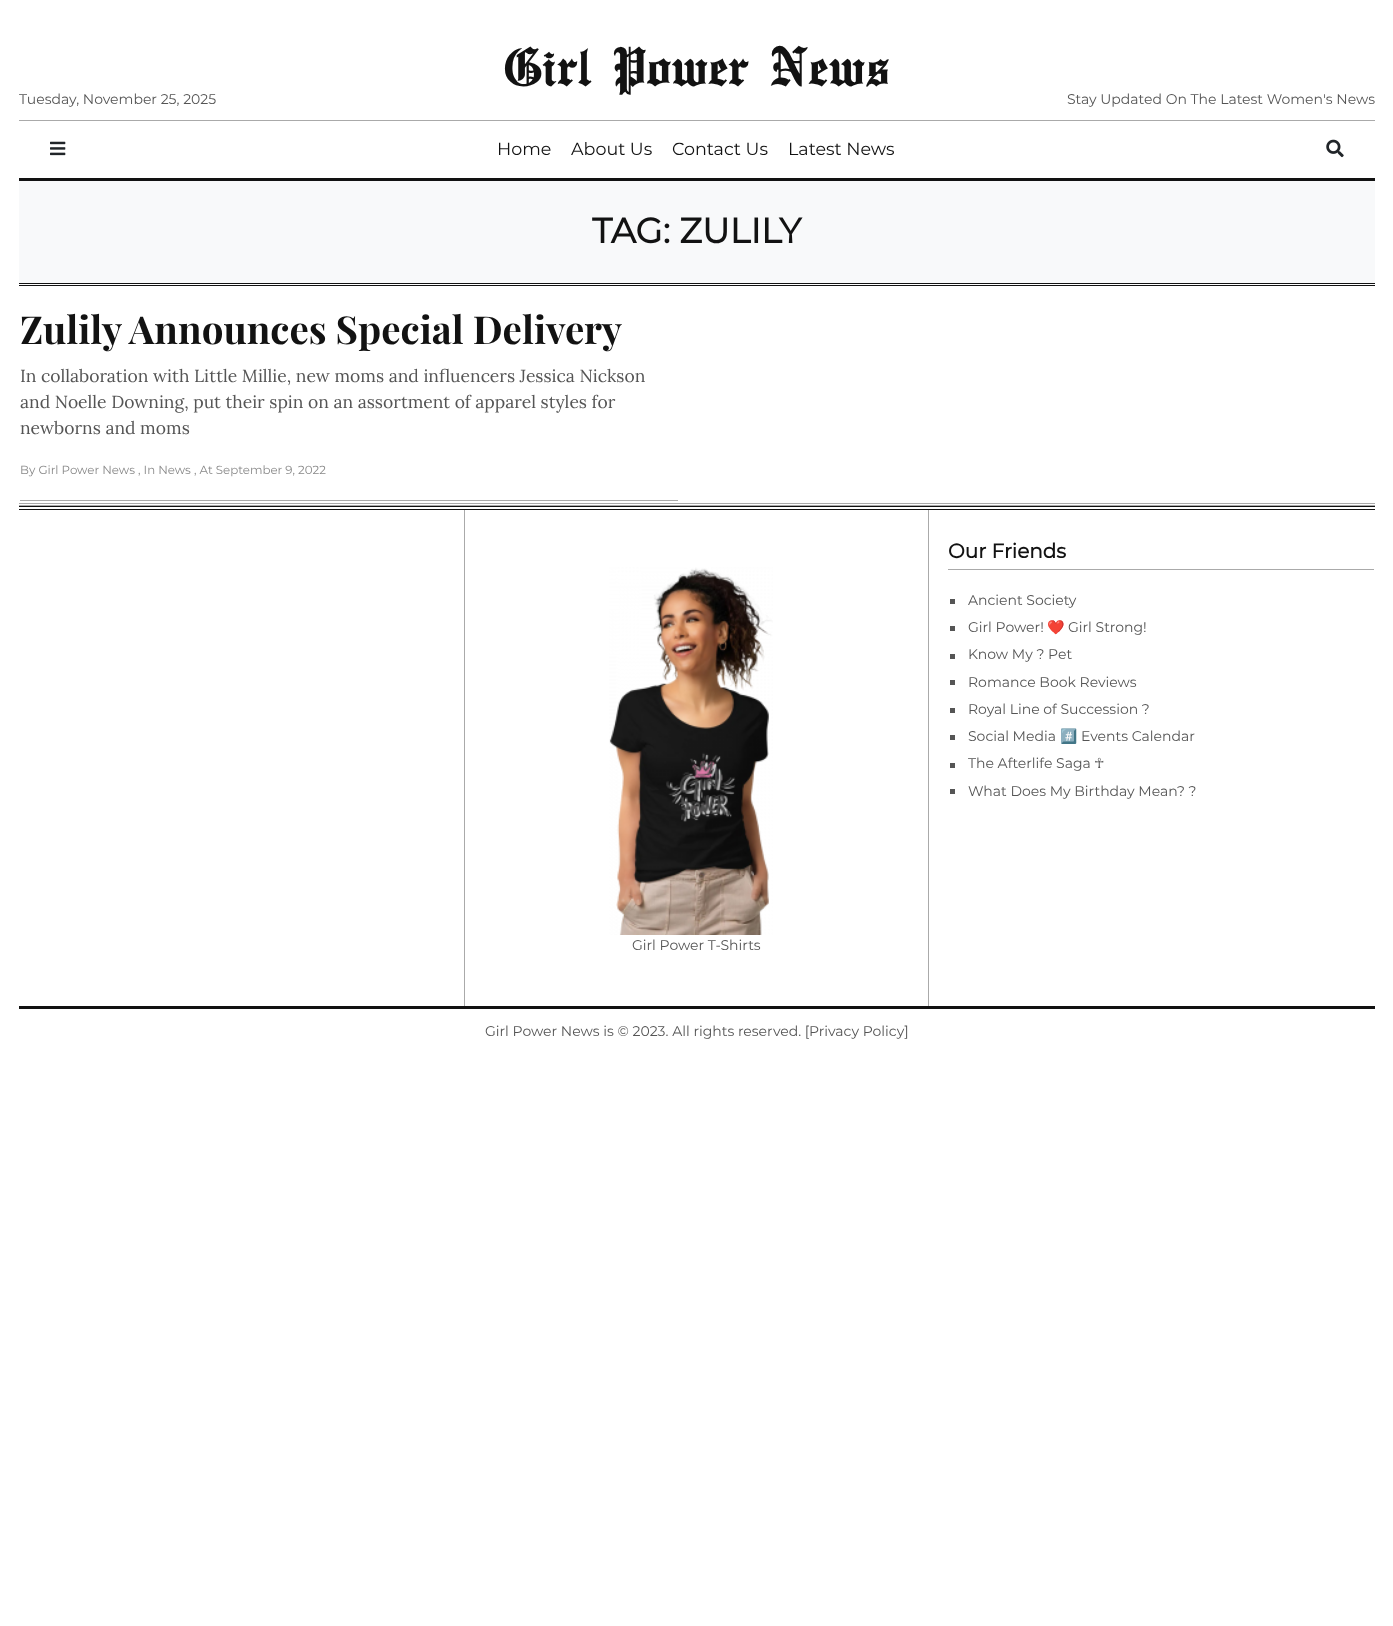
async function draw(canvas) {
  canvas.width = 1393;
  canvas.height = 1626;
  const ctx = canvas.getContext('2d');
  ctx.miterLimit = 4;
  ctx.fontKerning = 'normal';
  function label(s, x, y, font, color) {
    ctx.font = font;
    ctx.fillStyle = color;
    ctx.fillText(s, x, y);
  }
  function rect(x, y, w, h, color) {
    ctx.fillStyle = color;
    ctx.fillRect(x, y, w, h);
  }
  async function image(src, x, y, w, h) {
    const img = new Image();
    img.src = src;
    await img.decode();
    ctx.drawImage(img, x, y, w, h);
  }

  rect(0, 0, 1393, 1626, '#fff');
  label('Girl Power News', 504, 84, '500 60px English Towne', '#121212');
  label('Tuesday, November 25, 2025', 19, 104, '100 14px Montserrat', '#555');
  label('Stay Updated On The Latest Women\'s News', 1067, 104, '100 14px Montserrat', '#555');
  rect(19, 120, 1356, 1, '#aaa');
  await image('assets/img1.png', 50, 141, 16, 15);
  label('Home', 497, 155, '100 17.5px Montserrat', '#121212');
  label('About Us', 571, 155, '100 17.5px Montserrat', '#121212');
  label('Contact Us', 672, 155, '100 17.5px Montserrat', '#121212');
  label('Latest News', 788, 155, '100 17.5px Montserrat', '#121212');
  await image('assets/img2.png', 1326, 139, 18, 19);
  rect(19, 178, 1356, 3, '#121212');
  rect(19, 181, 1356, 102, '#f8f9fa');
  label('TAG: ZULILY', 592, 243, 'bold 35px Montserrat', '#121212');
  rect(19, 283, 1356, 1, '#121212');
  rect(19, 285, 1356, 1, '#121212');
  label('Zulily Announces Special Delivery', 20, 344, 'bold 38.5px Playfair Display', '#121212');
  label('In collaboration with Little Millie, new moms and influencers Jessica Nickson', 20, 382, '17.5px Lora', '#555');
  label('and Noelle Downing, put their spin on an assortment of apparel styles for', 20, 408, '17.5px Lora', '#555');
  label('newborns and moms', 20, 434, '17.5px Lora', '#555');
  label('By Girl Power News , In News , At September 9, 2022', 20, 474, '100 11.8px Montserrat', '#888');
  rect(20, 500, 658, 1, '#aaa');
  rect(19, 503, 1356, 1, '#aaa');
  rect(19, 505, 1356, 1, '#aaa');
  rect(19, 506, 1356, 1, '#121212');
  rect(19, 509, 1356, 1, '#121212');
  rect(464, 510, 1, 496, '#aaa');
  rect(948, 569, 426, 1, '#aaa');
  label('Our Friends', 948, 558, 'bold 20px Montserrat', '#121212');
  rect(950, 599, 5, 5, '#555');
  label('Ancient Society', 968, 605, '100 14px Montserrat', '#555');
  rect(950, 626, 5, 5, '#555');
  label('Girl Power!', 968, 632, '100 14px Montserrat', '#555');
  label('❤️', 1047, 632, '14px Noto Color Emoji', '#555');
  label('Girl Strong!', 1068, 632, '100 14px Montserrat', '#555');
  rect(950, 654, 5, 5, '#555');
  label('Know My ? Pet', 968, 659, '100 14px Montserrat', '#555');
  rect(950, 680, 5, 5, '#555');
  label('Romance Book Reviews', 968, 687, '100 14px Montserrat', '#555');
  rect(950, 708, 5, 5, '#555');
  label('Royal Line of Succession ?', 968, 714, '100 14px Montserrat', '#555');
  rect(950, 735, 5, 5, '#555');
  label('Social Media', 968, 741, '100 14px Montserrat', '#555');
  label('#️⃣', 1060, 741, '14px Noto Color Emoji', '#555');
  label('Events Calendar', 1081, 741, '100 14px Montserrat', '#555');
  rect(950, 763, 5, 5, '#555');
  label('The Afterlife Saga', 968, 768, '100 14px Montserrat', '#555');
  label('☥', 1094, 768, '14px DejaVu Sans', '#555');
  rect(950, 789, 5, 5, '#555');
  label('What Does My Birthday Mean? ?', 968, 796, '100 14px Montserrat', '#555');
  rect(928, 510, 1, 496, '#aaa');
  await image('assets/img3.png', 609, 567, 164, 368);
  label('Girl Power T-Shirts', 632, 950, '100 14px Montserrat', '#555');
  rect(19, 1006, 1356, 3, '#121212');
  label('Girl Power News is © 2023. All rights reserved. [', 485, 1036, '100 14px Montserrat', '#555');
  label('Privacy Policy]', 809, 1036, '100 14px Montserrat', '#555');
}

draw(document.querySelector('canvas'));
